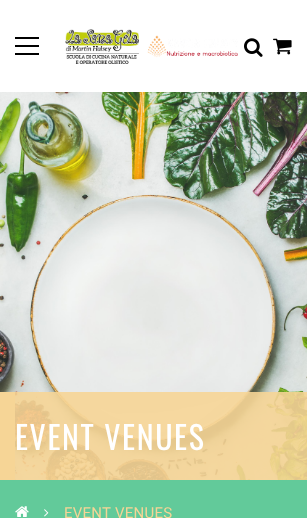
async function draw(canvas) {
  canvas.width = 307;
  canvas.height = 518;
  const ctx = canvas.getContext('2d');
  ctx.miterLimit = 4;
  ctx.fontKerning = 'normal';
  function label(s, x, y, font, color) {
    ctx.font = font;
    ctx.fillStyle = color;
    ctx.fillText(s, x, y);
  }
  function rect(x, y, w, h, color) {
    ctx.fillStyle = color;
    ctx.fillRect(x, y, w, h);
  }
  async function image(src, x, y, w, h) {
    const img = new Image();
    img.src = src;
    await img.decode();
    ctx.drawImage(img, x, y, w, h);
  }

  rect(0, 0, 307, 518, '#fff');
  rect(15, 37, 24, 2, '#000');
  rect(15, 45, 24, 2, '#000');
  rect(15, 53, 24, 2, '#000');
  await image('assets/img1.png', 65, 29, 173, 35);
  await image('assets/img2.png', 244, 38, 19, 19);
  await image('assets/img3.png', 273, 38, 19, 17);
  await image('assets/img4.png', 0, 92, 307, 388);
  rect(15, 392, 277, 88, '#f6d596e6');
  rect(0, 392, 15, 88, '#f6d596');
  ctx.letterSpacing = '1.6px';
  label('EVENT VENUES', 15, 450, '32px Oswald', '#fff');
  rect(292, 392, 15, 88, '#f6d596e6');
  rect(0, 480, 307, 38, '#62ca9a');
  await image('assets/img5.png', 15, 506, 14, 11);
  await image('assets/img6.png', 44, 509, 5, 8);
  ctx.letterSpacing = '0.25px';
  label('EVENT VENUES', 64, 518, '15px Roboto', '#f6d596');
}

draw(document.querySelector('canvas'));
